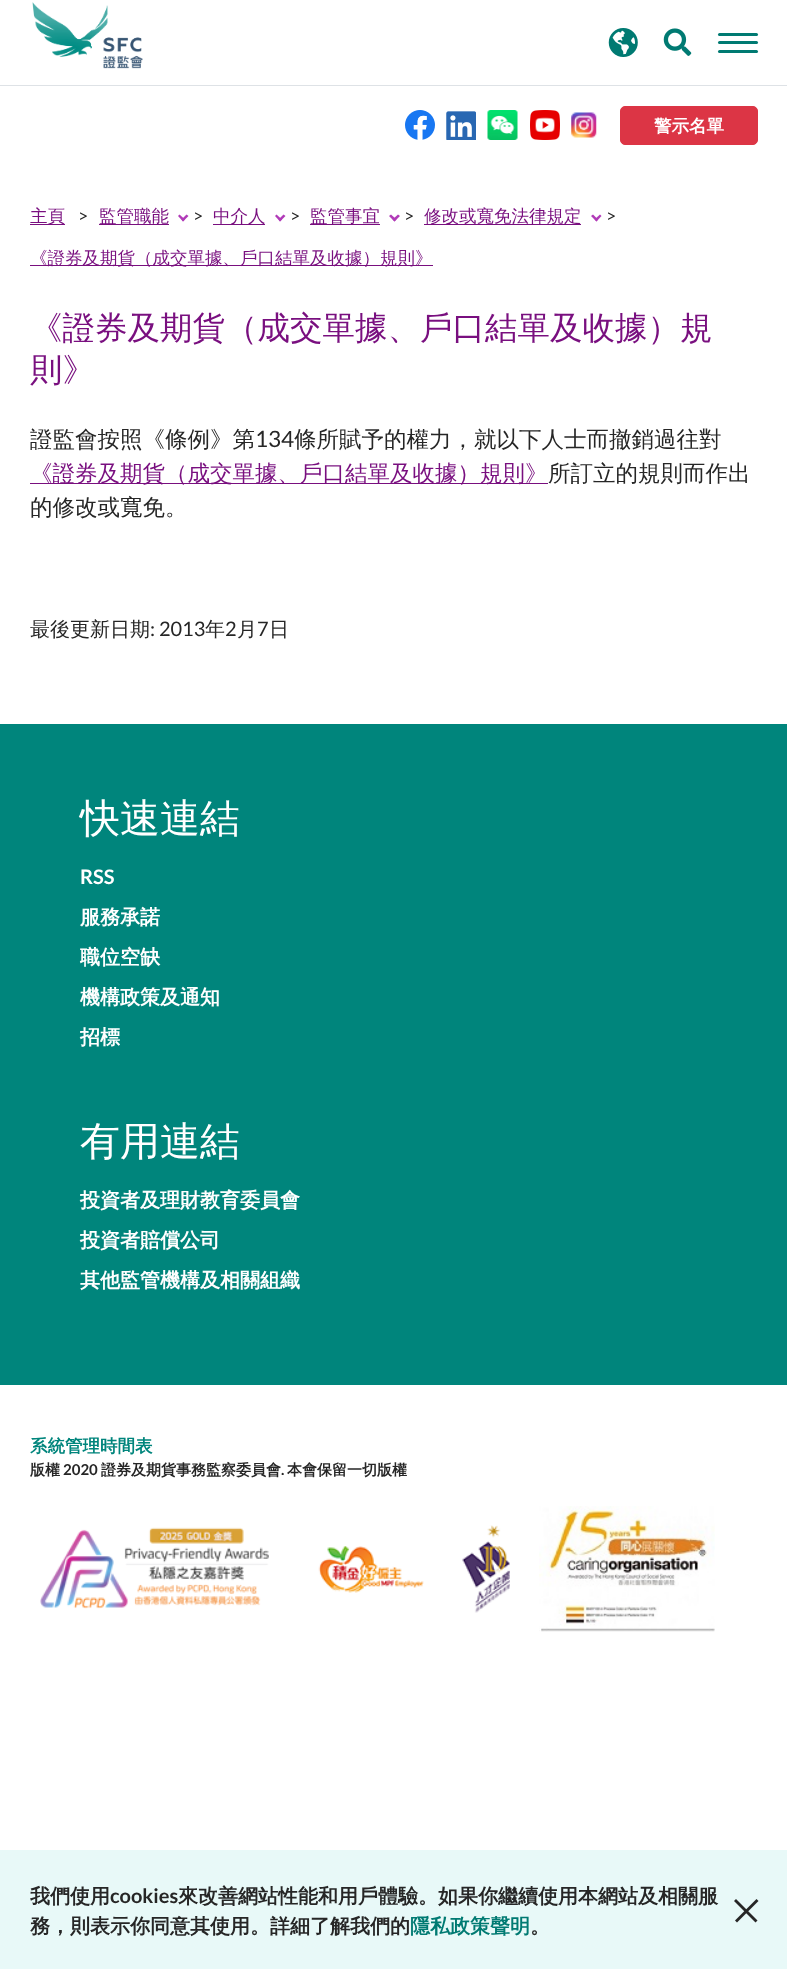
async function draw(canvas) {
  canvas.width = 787;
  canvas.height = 1969;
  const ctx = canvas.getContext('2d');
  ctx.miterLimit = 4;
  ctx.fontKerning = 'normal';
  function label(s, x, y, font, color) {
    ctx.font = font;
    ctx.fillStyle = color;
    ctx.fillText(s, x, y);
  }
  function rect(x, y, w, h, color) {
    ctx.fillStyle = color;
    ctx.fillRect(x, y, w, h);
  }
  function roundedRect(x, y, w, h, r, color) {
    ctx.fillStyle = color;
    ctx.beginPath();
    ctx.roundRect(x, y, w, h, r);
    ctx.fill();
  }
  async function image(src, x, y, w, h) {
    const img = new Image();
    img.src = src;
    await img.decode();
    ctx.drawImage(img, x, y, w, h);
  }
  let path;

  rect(0, 0, 787, 1969, '#fff');
  await image('assets/img1.png', 32, 2, 111, 67);
  await image('assets/img2.png', 608, 28, 30, 29);
  await image('assets/img3.png', 663, 28, 29, 28);
  roundedRect(718, 33, 40, 3, 1.5, '#007a72');
  roundedRect(718, 41, 40, 3, 1.5, '#007a72');
  roundedRect(718, 50, 40, 3, 1.5, '#007a72');
  rect(0, 85, 787, 1, '#dee2e6');
  await image('assets/img4.png', 405, 110, 30, 30);
  await image('assets/img5.png', 446, 111, 30, 29);
  await image('assets/img6.png', 487, 110, 31, 30);
  await image('assets/img7.png', 530, 110, 30, 30);
  await image('assets/img8.png', 571, 112, 26, 26);
  ctx.fillStyle = '#dc3545';
  ctx.beginPath();
  ctx.roundRect(620.5, 106.5, 137, 38, 4.5);
  ctx.fill();
  ctx.strokeStyle = '#dc3545';
  ctx.stroke();
  label('警示名單', 654, 132, 'bold 17.5px WenQuanYi Zen Hei', '#fff');
  rect(30, 224, 35, 1, '#790f7f');
  label('主頁', 30, 222, '500 17.5px WenQuanYi Zen Hei', '#790f7f');
  label('>', 78, 222, '17.5px Lato', '#262626');
  rect(99, 224, 70, 1, '#790f7f');
  label('監管職能', 99, 222, '500 17.5px WenQuanYi Zen Hei', '#790f7f');
  ctx.fillStyle = '#b13bb8';
  path = new Path2D('M186.5 214.5L188.5 216L183 221.5L181.5 219.5Z');
  ctx.fill(path);
  path = new Path2D('M179.5 214.5L185 219.5L183 221.5L178 216Z');
  ctx.fill(path);
  label('>', 193, 222, '17.5px Lato', '#262626');
  rect(213, 224, 52, 1, '#790f7f');
  label('中介人', 213, 222, '500 17.5px WenQuanYi Zen Hei', '#790f7f');
  ctx.fillStyle = '#b13bb8';
  path = new Path2D('M283.5 214.5L285.5 216L280 221.5L278.5 219.5Z');
  ctx.fill(path);
  path = new Path2D('M276.5 214.5L282 219.5L280 221.5L275 216Z');
  ctx.fill(path);
  label('>', 290, 222, '17.5px Lato', '#262626');
  rect(310, 224, 70, 1, '#790f7f');
  label('監管事宜', 310, 222, '500 17.5px WenQuanYi Zen Hei', '#790f7f');
  ctx.fillStyle = '#b13bb8';
  path = new Path2D('M398 214.5L400 216L394.5 221.5L392.5 219.5Z');
  ctx.fill(path);
  path = new Path2D('M391 214.5L396.5 219.5L394.5 221.5L389 216Z');
  ctx.fill(path);
  label('>', 404, 222, '17.5px Lato', '#262626');
  rect(424, 224, 157, 1, '#790f7f');
  label('修改或寬免法律規定', 424, 222, '500 17.5px WenQuanYi Zen Hei', '#790f7f');
  ctx.fillStyle = '#b13bb8';
  path = new Path2D('M600 214.5L601.5 216L596.5 221.5L594.5 219.5Z');
  ctx.fill(path);
  path = new Path2D('M593 214.5L598 219.5L596.5 221.5L591 216Z');
  ctx.fill(path);
  label('>', 606, 222, '17.5px Lato', '#262626');
  rect(30, 265, 403, 1, '#790f7f');
  label('《證券及期貨（成交單據、戶口結單及收據）規則》', 30, 264, '500 17.5px WenQuanYi Zen Hei', '#790f7f');
  label('《證券及期貨（成交單據、戶口結單及收據）規', 30, 339, '500 32.5px WenQuanYi Zen Hei', '#790f7f');
  label('則》', 30, 381, '500 32.5px WenQuanYi Zen Hei', '#790f7f');
  label('證監會按照《條例》第', 30, 447, '500 22.5px WenQuanYi Zen Hei', '#262626');
  label('134', 255, 447, '22.5px Lato', '#262626');
  label('條所賦予的權力，就以下人士而撤銷過往對', 294, 447, '500 22.5px WenQuanYi Zen Hei', '#262626');
  rect(30, 483, 518, 1, '#790f7f');
  label('《證券及期貨（成交單據、戶口結單及收據）規則》', 30, 481, '500 22.5px WenQuanYi Zen Hei', '#790f7f');
  label('所訂立的規則而作出', 548, 481, '500 22.5px WenQuanYi Zen Hei', '#262626');
  label('的修改或寬免。', 30, 515, '500 22.5px WenQuanYi Zen Hei', '#262626');
  label('最後更新日期', 30, 636, '500 20px WenQuanYi Zen Hei', '#262626');
  label(': 2013', 150, 636, '20px Lato', '#262626');
  label('年', 205, 636, '500 20px WenQuanYi Zen Hei', '#262626');
  label('2', 225, 636, '20px Lato', '#262626');
  label('月', 237, 636, '500 20px WenQuanYi Zen Hei', '#262626');
  label('7', 257, 636, '20px Lato', '#262626');
  label('日', 269, 636, '500 20px WenQuanYi Zen Hei', '#262626');
  rect(0, 724, 787, 661, '#00857c');
  label('快速連結', 80, 832, '500 40px WenQuanYi Zen Hei', '#fff');
  label('RSS', 80, 884, 'bold 20px Lato', '#fff');
  label('服務承諾', 80, 924, 'bold 20px WenQuanYi Zen Hei', '#fff');
  label('職位空缺', 80, 964, 'bold 20px WenQuanYi Zen Hei', '#fff');
  label('機構政策及通知', 80, 1004, 'bold 20px WenQuanYi Zen Hei', '#fff');
  label('招標', 80, 1044, 'bold 20px WenQuanYi Zen Hei', '#fff');
  label('有用連結', 80, 1155, '500 40px WenQuanYi Zen Hei', '#fff');
  label('投資者及理財教育委員會', 80, 1207, 'bold 20px WenQuanYi Zen Hei', '#fff');
  label('投資者賠償公司', 80, 1247, 'bold 20px WenQuanYi Zen Hei', '#fff');
  label('其他監管機構及相關組織', 80, 1287, 'bold 20px WenQuanYi Zen Hei', '#fff');
  label('系統管理時間表', 30, 1452, 'bold 17.5px WenQuanYi Zen Hei', '#00857c');
  label('版權', 30, 1475, 'bold 15px WenQuanYi Zen Hei', '#262626');
  label('2020', 63, 1475, 'bold 15px Lato', '#262626');
  label('證券及期貨事務監察委員會', 101, 1475, 'bold 15px WenQuanYi Zen Hei', '#262626');
  label('.', 281, 1475, 'bold 15px Lato', '#262626');
  label('本會保留一切版權', 287, 1475, 'bold 15px WenQuanYi Zen Hei', '#262626');
  await image('assets/img9.png', 40, 1527, 229, 82);
  await image('assets/img10.png', 318, 1546, 106, 47);
  await image('assets/img11.png', 462, 1525, 48, 88);
  await image('assets/img12.png', 539, 1506, 176, 126);
  rect(0, 1850, 787, 119, '#e8f9f8');
  label('我們使用', 30, 1903, 'bold 20px WenQuanYi Zen Hei', '#262626');
  label('cookies', 110, 1903, 'bold 20px Lato', '#262626');
  label('來改善網站性能和用戶體驗。如果你繼續使用本網站及相關服', 178, 1903, 'bold 20px WenQuanYi Zen Hei', '#262626');
  label('務，則表示你同意其使用。詳細了解我們的', 30, 1933, 'bold 20px WenQuanYi Zen Hei', '#262626');
  label('隱私政策聲明', 410, 1933, 'bold 20px WenQuanYi Zen Hei', '#007a72');
  label('。', 530, 1933, 'bold 20px WenQuanYi Zen Hei', '#262626');
  path = new Path2D('M736 1899L757.5 1920.5L755.5 1922.5L734 1901Z');
  ctx.fill(path);
  path = new Path2D('M735 1920.5L756.5 1899L758.5 1901L737 1922.5Z');
  ctx.fill(path);
}

draw(document.querySelector('canvas'));
